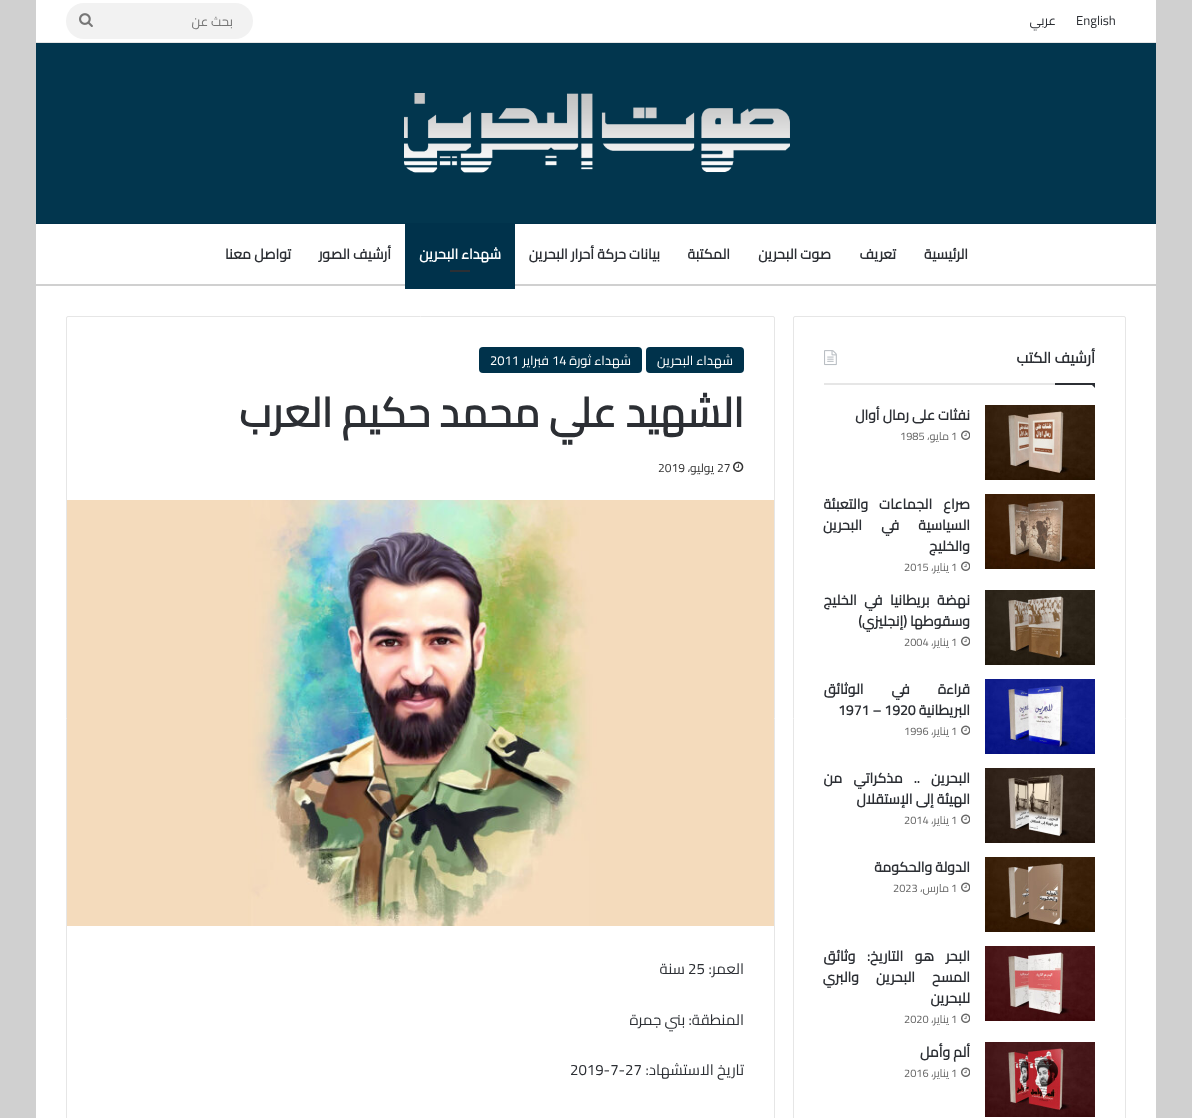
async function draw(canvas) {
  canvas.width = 1192;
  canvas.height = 1118;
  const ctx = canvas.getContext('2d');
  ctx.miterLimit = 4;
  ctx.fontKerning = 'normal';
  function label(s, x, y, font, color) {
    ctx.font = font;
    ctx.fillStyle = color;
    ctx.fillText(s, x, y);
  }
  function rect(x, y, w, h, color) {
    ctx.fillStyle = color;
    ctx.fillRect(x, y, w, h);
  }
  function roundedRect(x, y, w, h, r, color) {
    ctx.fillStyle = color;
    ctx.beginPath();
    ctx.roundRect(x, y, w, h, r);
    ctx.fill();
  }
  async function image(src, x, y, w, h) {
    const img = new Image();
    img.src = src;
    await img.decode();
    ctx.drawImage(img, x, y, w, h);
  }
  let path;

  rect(0, 0, 1192, 1118, '#d0d0d0');
  rect(36, 286, 1120, 832, '#fff');
  rect(36, 43, 1120, 180, '#02364e');
  rect(36, 0, 1120, 42, '#fff');
  rect(36, 42, 1120, 1, '#e6e6e6');
  label('English', 1076, 25, '13px Cairo', '#2c2f34');
  ctx.direction = 'rtl';
  label('عربي', 1056, 25, '13px Cairo', '#2c2f34');
  roundedRect(66, 3, 187, 36, 18, '#f2f2f2');
  label('بحث عن', 233, 26, '13px Cairo', '#757575');
  await image('assets/img1.png', 79, 13, 14, 14);
  await image('assets/img2.png', 404, 93, 386, 80);
  rect(36, 224, 1120, 60, '#fff');
  rect(36, 223, 1120, 1, '#00324b');
  label('الرئيسية', 968, 259, 'bold 14px Cairo', '#2c2f34');
  label('تعريف', 896, 259, 'bold 14px Cairo', '#2c2f34');
  label('صوت البحرين', 831, 259, 'bold 14px Cairo', '#2c2f34');
  label('المكتبة', 730, 259, 'bold 14px Cairo', '#2c2f34');
  label('بيانات حركة أحرار البحرين', 660, 259, 'bold 14px Cairo', '#2c2f34');
  rect(405, 224, 110, 65, '#00324b');
  label('شهداء البحرين', 501, 259, 'bold 14px Cairo', '#fff');
  rect(450, 270, 20, 2, '#2c2f34');
  label('أرشيف الصور', 391, 259, 'bold 14px Cairo', '#2c2f34');
  label('تواصل معنا', 291, 259, 'bold 14px Cairo', '#2c2f34');
  ctx.beginPath();
  ctx.roundRect(793.5, 316.5, 332, 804, 1.5);
  ctx.strokeStyle = '#e6e6e6';
  ctx.stroke();
  rect(824, 383, 231, 2, '#e6e6e6');
  label('أرشيف الكتب', 1095, 363, 'bold 15px Cairo', '#2c2f34');
  await image('assets/img3.png', 824, 350, 13, 16);
  path = new Path2D('M1090 383H1095V388Z');
  ctx.fill(path);
  rect(1055, 383, 40, 2, '#2c2f34');
  await image('assets/img4.png', 985, 405, 110, 75);
  label('نفثات على رمال أوال', 970, 420, 'bold 14px Cairo', '#2c2f34');
  await image('assets/img5.png', 961, 430, 9, 10);
  ctx.direction = 'ltr';
  label('1', 951, 440, '11px Cairo', '#666');
  ctx.direction = 'rtl';
  label('مايو،', 949, 440, '11px Cairo', '#666');
  ctx.direction = 'ltr';
  label('1985', 900, 440, '11px Cairo', '#666');
  await image('assets/img6.png', 985, 494, 110, 75);
  ctx.wordSpacing = '8px';
  ctx.direction = 'rtl';
  label('صراع الجماعات والتعبئة', 970, 509, 'bold 14px Cairo', '#2c2f34');
  ctx.wordSpacing = '16px';
  label('السياسية في البحرين', 970, 530, 'bold 14px Cairo', '#2c2f34');
  ctx.wordSpacing = '0px';
  label('والخليج', 970, 551, 'bold 14px Cairo', '#2c2f34');
  await image('assets/img5.png', 961, 561, 9, 10);
  ctx.direction = 'ltr';
  label('1', 951, 571, '11px Cairo', '#666');
  ctx.direction = 'rtl';
  label('يناير،', 949, 571, '11px Cairo', '#666');
  ctx.direction = 'ltr';
  label('2015', 904, 571, '11px Cairo', '#666');
  await image('assets/img7.png', 985, 590, 110, 75);
  ctx.wordSpacing = '4.5px';
  ctx.direction = 'rtl';
  label('نهضة بريطانيا في الخليج', 970, 605, 'bold 14px Cairo', '#2c2f34');
  ctx.wordSpacing = '0px';
  label('وسقوطها (إنجليزي)', 970, 626, 'bold 14px Cairo', '#2c2f34');
  await image('assets/img5.png', 961, 636, 9, 10);
  ctx.direction = 'ltr';
  label('1', 951, 646, '11px Cairo', '#666');
  ctx.direction = 'rtl';
  label('يناير،', 949, 646, '11px Cairo', '#666');
  ctx.direction = 'ltr';
  label('2004', 904, 646, '11px Cairo', '#666');
  await image('assets/img8.png', 985, 679, 110, 75);
  ctx.wordSpacing = '25px';
  ctx.direction = 'rtl';
  label('قراءة في الوثائق', 970, 694, 'bold 14px Cairo', '#2c2f34');
  ctx.wordSpacing = '0px';
  label('البريطانية', 970, 715, 'bold 14px Cairo', '#2c2f34');
  ctx.direction = 'ltr';
  label('1971 – 1920', 838, 715, 'bold 14px Cairo', '#2c2f34');
  await image('assets/img5.png', 961, 725, 9, 10);
  label('1', 951, 735, '11px Cairo', '#666');
  ctx.direction = 'rtl';
  label('يناير،', 949, 735, '11px Cairo', '#666');
  ctx.direction = 'ltr';
  label('1996', 904, 735, '11px Cairo', '#666');
  await image('assets/img9.png', 985, 768, 110, 75);
  ctx.wordSpacing = '8px';
  ctx.direction = 'rtl';
  label('البحرين .. مذكراتي من', 970, 783, 'bold 14px Cairo', '#2c2f34');
  ctx.wordSpacing = '0px';
  label('الهيئة إلى الإستقلال', 970, 804, 'bold 14px Cairo', '#2c2f34');
  await image('assets/img5.png', 961, 814, 9, 10);
  ctx.direction = 'ltr';
  label('1', 951, 824, '11px Cairo', '#666');
  ctx.direction = 'rtl';
  label('يناير،', 949, 824, '11px Cairo', '#666');
  ctx.direction = 'ltr';
  label('2014', 904, 824, '11px Cairo', '#666');
  await image('assets/img10.png', 985, 857, 110, 75);
  ctx.direction = 'rtl';
  label('الدولة والحكومة', 970, 872, 'bold 14px Cairo', '#2c2f34');
  await image('assets/img5.png', 961, 882, 9, 10);
  ctx.direction = 'ltr';
  label('1', 951, 892, '11px Cairo', '#666');
  ctx.direction = 'rtl';
  label('مارس،', 949, 892, '11px Cairo', '#666');
  ctx.direction = 'ltr';
  label('2023', 893, 892, '11px Cairo', '#666');
  await image('assets/img11.png', 985, 946, 110, 75);
  ctx.wordSpacing = '8.5px';
  ctx.direction = 'rtl';
  label('البحر هو التاريخ: وثائق', 970, 961, 'bold 14px Cairo', '#2c2f34');
  ctx.wordSpacing = '14px';
  label('المسح البحرين والبري', 970, 982, 'bold 14px Cairo', '#2c2f34');
  ctx.wordSpacing = '0px';
  label('للبحرين', 970, 1003, 'bold 14px Cairo', '#2c2f34');
  await image('assets/img5.png', 961, 1013, 9, 10);
  ctx.direction = 'ltr';
  label('1', 951, 1023, '11px Cairo', '#666');
  ctx.direction = 'rtl';
  label('يناير،', 949, 1023, '11px Cairo', '#666');
  ctx.direction = 'ltr';
  label('2020', 904, 1023, '11px Cairo', '#666');
  await image('assets/img12.png', 985, 1042, 110, 75);
  ctx.direction = 'rtl';
  label('ألم وأمل', 970, 1057, 'bold 14px Cairo', '#2c2f34');
  await image('assets/img5.png', 961, 1067, 9, 10);
  ctx.direction = 'ltr';
  label('1', 951, 1077, '11px Cairo', '#666');
  ctx.direction = 'rtl';
  label('يناير،', 949, 1077, '11px Cairo', '#666');
  ctx.direction = 'ltr';
  label('2016', 904, 1077, '11px Cairo', '#666');
  ctx.beginPath();
  ctx.roundRect(66.5, 316.5, 708, 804, 1.5);
  ctx.stroke();
  roundedRect(646, 347, 98, 26, 4, '#00324b');
  ctx.direction = 'rtl';
  label('شهداء البحرين', 733, 365, '13px Cairo', '#fff');
  roundedRect(479, 347, 163, 26, 4, '#00324b');
  label('شهداء ثورة', 631, 365, '13px Cairo', '#fff');
  ctx.direction = 'ltr';
  label('14', 552, 365, '13px Cairo', '#fff');
  ctx.direction = 'rtl';
  label('فبراير', 549, 365, '13px Cairo', '#fff');
  ctx.direction = 'ltr';
  label('2011', 490, 365, '13px Cairo', '#fff');
  ctx.direction = 'rtl';
  label('الشهيد علي محمد حكيم العرب', 744, 427, 'bold 41px Cairo', '#2c2f34');
  await image('assets/img13.png', 733, 461, 11, 11);
  ctx.direction = 'ltr';
  label('27', 717, 472, '12px Cairo', '#333');
  ctx.direction = 'rtl';
  label('يوليو،', 714, 472, '12px Cairo', '#333');
  ctx.direction = 'ltr';
  label('2019', 658, 472, '12px Cairo', '#333');
  await image('assets/img14.png', 67, 500, 707, 426);
  ctx.direction = 'rtl';
  label('العمر:', 744, 974, '15px Cairo', '#2c2f34');
  ctx.direction = 'ltr';
  label('25', 688, 974, '15px Cairo', '#2c2f34');
  ctx.direction = 'rtl';
  label('سنة', 685, 974, '15px Cairo', '#2c2f34');
  label('المنطقة: بني جمرة', 744, 1025, '15px Cairo', '#2c2f34');
  label('تاريخ الاستشهاد:', 744, 1075, '15px Cairo', '#2c2f34');
  ctx.direction = 'ltr';
  label('2019-7-27', 570, 1075, '15px Cairo', '#2c2f34');
}

draw(document.querySelector('canvas'));
